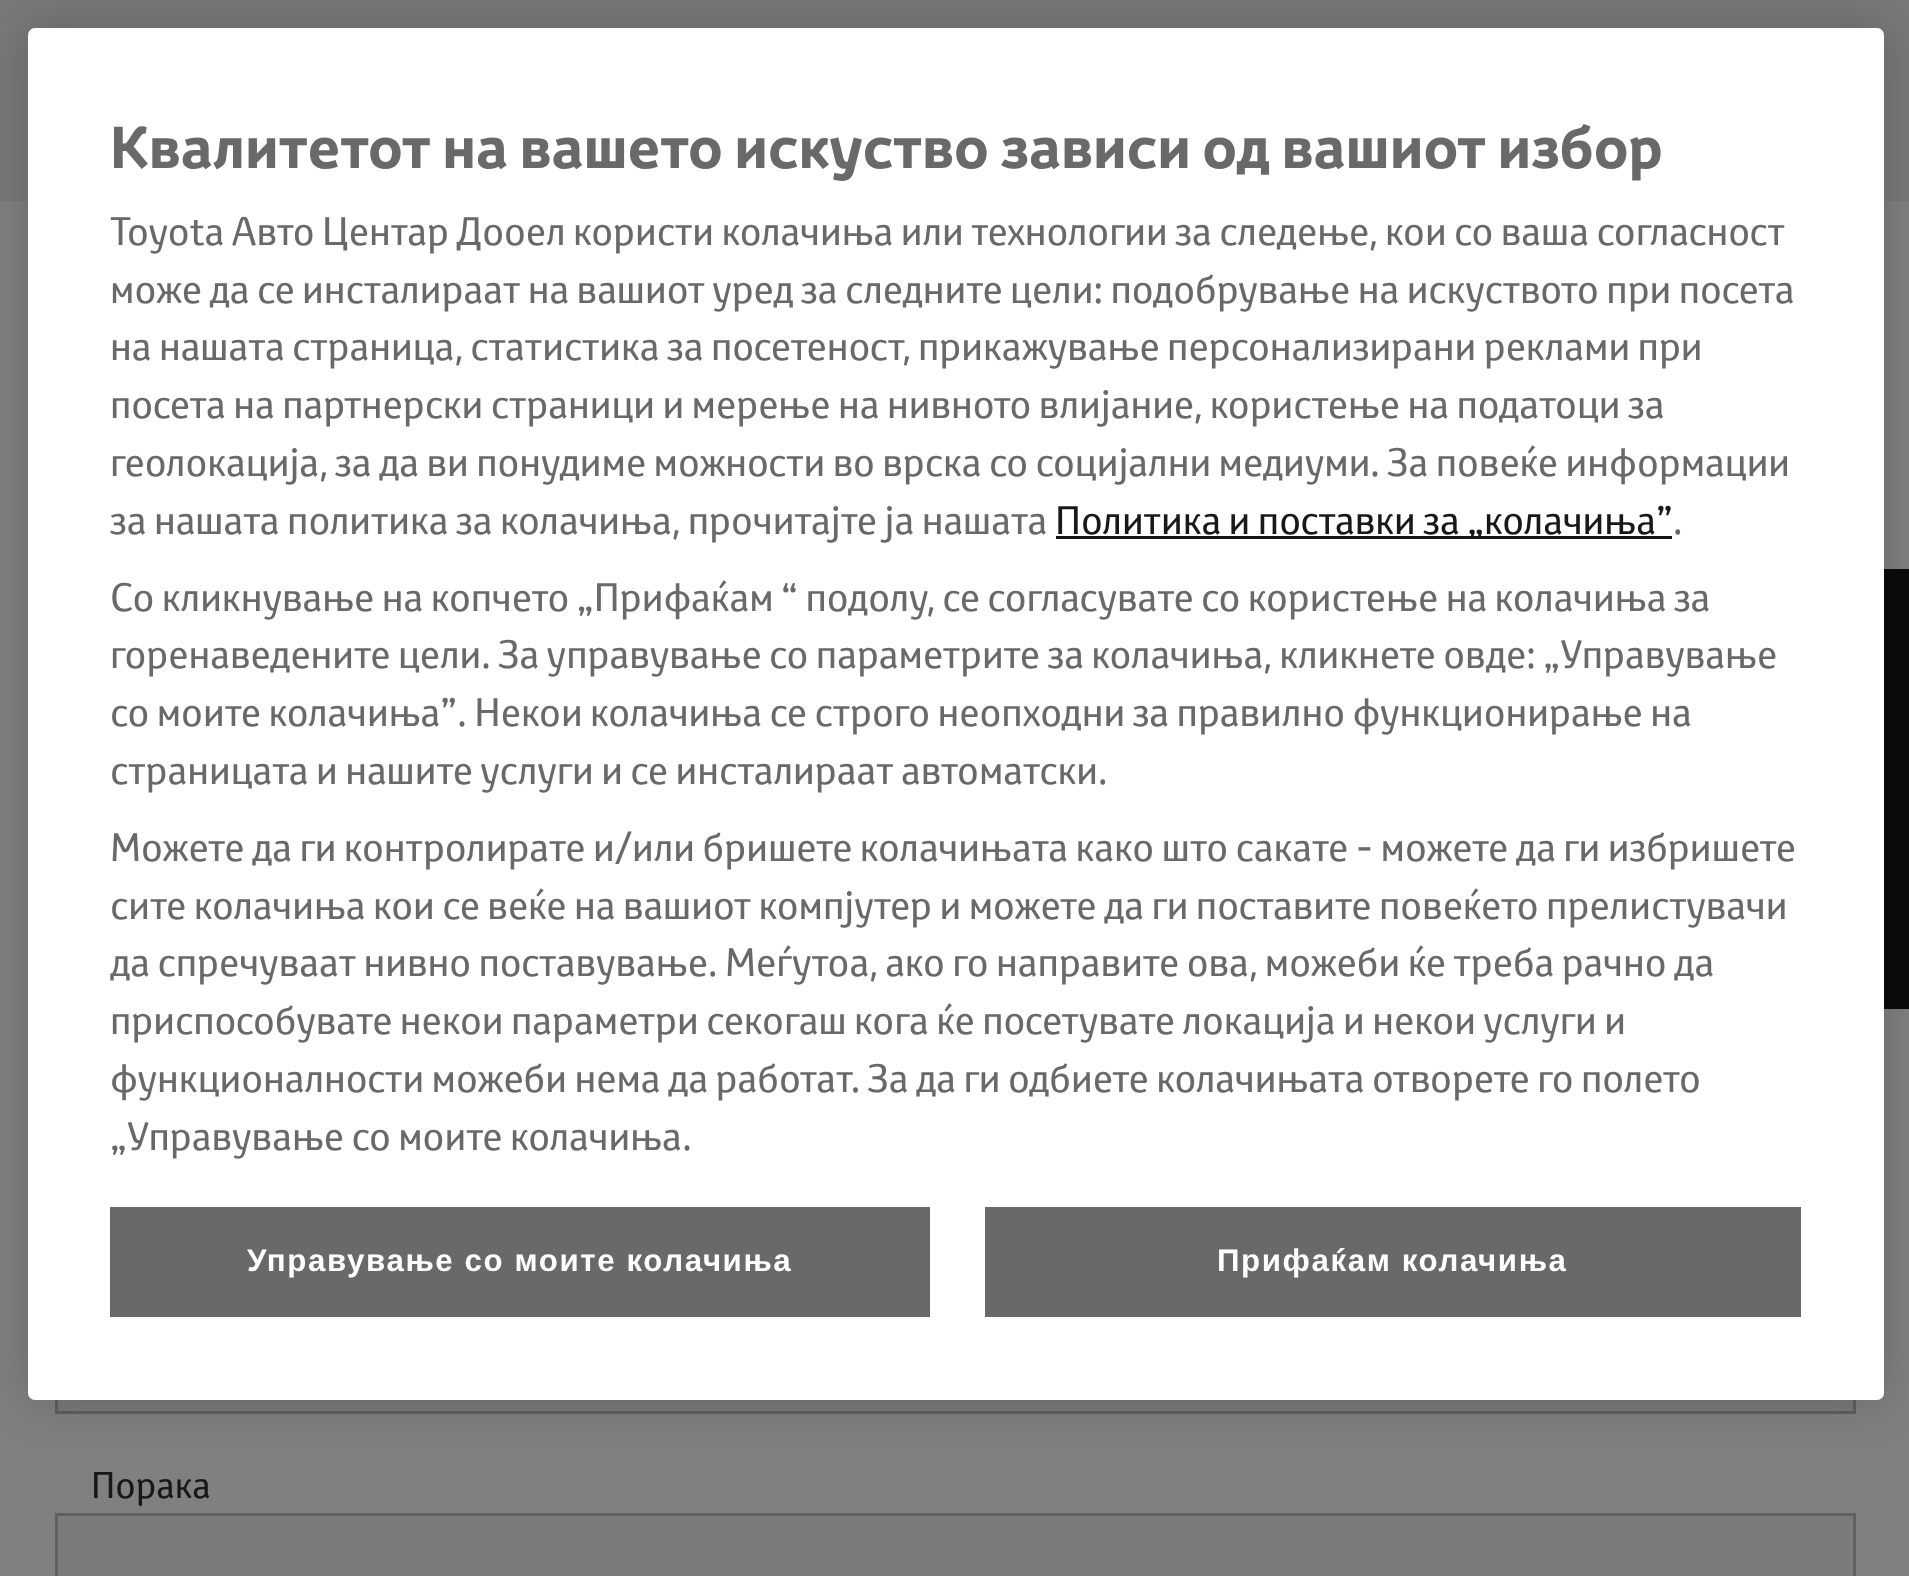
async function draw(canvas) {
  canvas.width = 1909;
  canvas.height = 1576;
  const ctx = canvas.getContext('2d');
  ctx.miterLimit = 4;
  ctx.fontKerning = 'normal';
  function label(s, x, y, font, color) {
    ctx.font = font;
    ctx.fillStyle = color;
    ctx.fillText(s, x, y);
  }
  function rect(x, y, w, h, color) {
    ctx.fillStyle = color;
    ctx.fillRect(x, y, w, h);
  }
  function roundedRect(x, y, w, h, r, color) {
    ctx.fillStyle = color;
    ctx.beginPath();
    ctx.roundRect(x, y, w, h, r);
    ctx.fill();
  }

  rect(0, 0, 1909, 1576, '#808080');
  rect(0, 0, 1909, 201, '#797979');
  rect(1884, 569, 25, 440, '#0b0b0e');
  rect(58, 1400, 1795, 11, '#7a7b7b');
  ctx.strokeStyle = '#606060';
  ctx.lineWidth = 3;
  ctx.strokeRect(56.5, 1305.5, 1798, 107);
  ctx.fillStyle = '#00000033';
  ctx.filter = 'blur(25px)';
  ctx.beginPath();
  ctx.roundRect(28, 28, 1856, 1372, 7);
  ctx.fill();
  ctx.filter = 'none';
  roundedRect(28, 28, 1856, 1372, 7, '#fff');
  label('Квалитетот на вашето искуство зависи од вашиот избор', 110, 168, 'bold 57.2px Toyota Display', '#696969');
  label('Toyota Авто Центар Дооел користи колачиња или технологии за следење, кои со ваша согласност', 110, 245, '38.5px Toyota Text', '#696969');
  label('може да се инсталираат на вашиот уред за следните цели: подобрување на искуството при посета', 110, 303, '38.5px Toyota Text', '#696969');
  label('на нашата страница, статистика за посетеност, прикажување персонализирани реклами при', 110, 360, '38.5px Toyota Text', '#696969');
  label('посета на партнерски страници и мерење на нивното влијание, користење на податоци за', 110, 418, '38.5px Toyota Text', '#696969');
  label('геолокација, за да ви понудиме можности во врска со социјални медиуми. За повеќе информации', 110, 476, '38.5px Toyota Text', '#696969');
  label('за нашата политика за колачиња, прочитајте ја нашата', 110, 534, '38.5px Toyota Text', '#696969');
  rect(1056, 536, 616, 3, '#151515');
  label('Политика и поставки за „колачиња”', 1055, 534, '38.5px Toyota Text', '#181818');
  label('.', 1673, 534, '38.5px Toyota Text', '#696969');
  label('Со кликнување на копчето „Прифаќам “ подолу, се согласувате со користење на колачиња за', 110, 611, '38.5px Toyota Text', '#696969');
  label('горенаведените цели. За управување со параметрите за колачиња, кликнете овде: „Управување', 110, 668, '38.5px Toyota Text', '#696969');
  label('со моите колачиња”. Некои колачиња се строго неопходни за правилно функционирање на', 110, 726, '38.5px Toyota Text', '#696969');
  label('страницата и нашите услуги и се инсталираат автоматски.', 110, 784, '38.5px Toyota Text', '#696969');
  label('Можете да ги контролирате и/или бришете колачињата како што сакате - можете да ги избришете', 110, 861, '38.5px Toyota Text', '#696969');
  label('сите колачиња кои се веќе на вашиот компјутер и можете да ги поставите повеќето прелистувачи', 110, 919, '38.5px Toyota Text', '#696969');
  label('да спречуваат нивно поставување. Меѓутоа, ако го направите ова, можеби ќе треба рачно да', 110, 976, '38.5px Toyota Text', '#696969');
  label('приспособувате некои параметри секогаш кога ќе посетувате локација и некои услуги и', 110, 1034, '38.5px Toyota Text', '#696969');
  label('функционалности можеби нема да работат. За да ги одбиете колачињата отворете го полето', 110, 1092, '38.5px Toyota Text', '#696969');
  label('„Управување со моите колачиња.', 110, 1150, '38.5px Toyota Text', '#696969');
  rect(110, 1207, 820, 110, '#696969');
  ctx.letterSpacing = '1.6px';
  label('Управување со моите колачиња', 247, 1271, 'bold 31.25px Liberation Sans', '#fff');
  rect(985, 1207, 816, 110, '#696969');
  label('Прифаќам колачиња', 1217, 1271, 'bold 31.25px Liberation Sans', '#fff');
  ctx.letterSpacing = '0px';
  label('Порака', 91, 1498, '36px Toyota Text', '#181818');
  ctx.fillStyle = '#7a7b7b';
  ctx.beginPath();
  ctx.rect(56.5, 1514.5, 1798, 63);
  ctx.fill();
  ctx.stroke();
}

draw(document.querySelector('canvas'));
